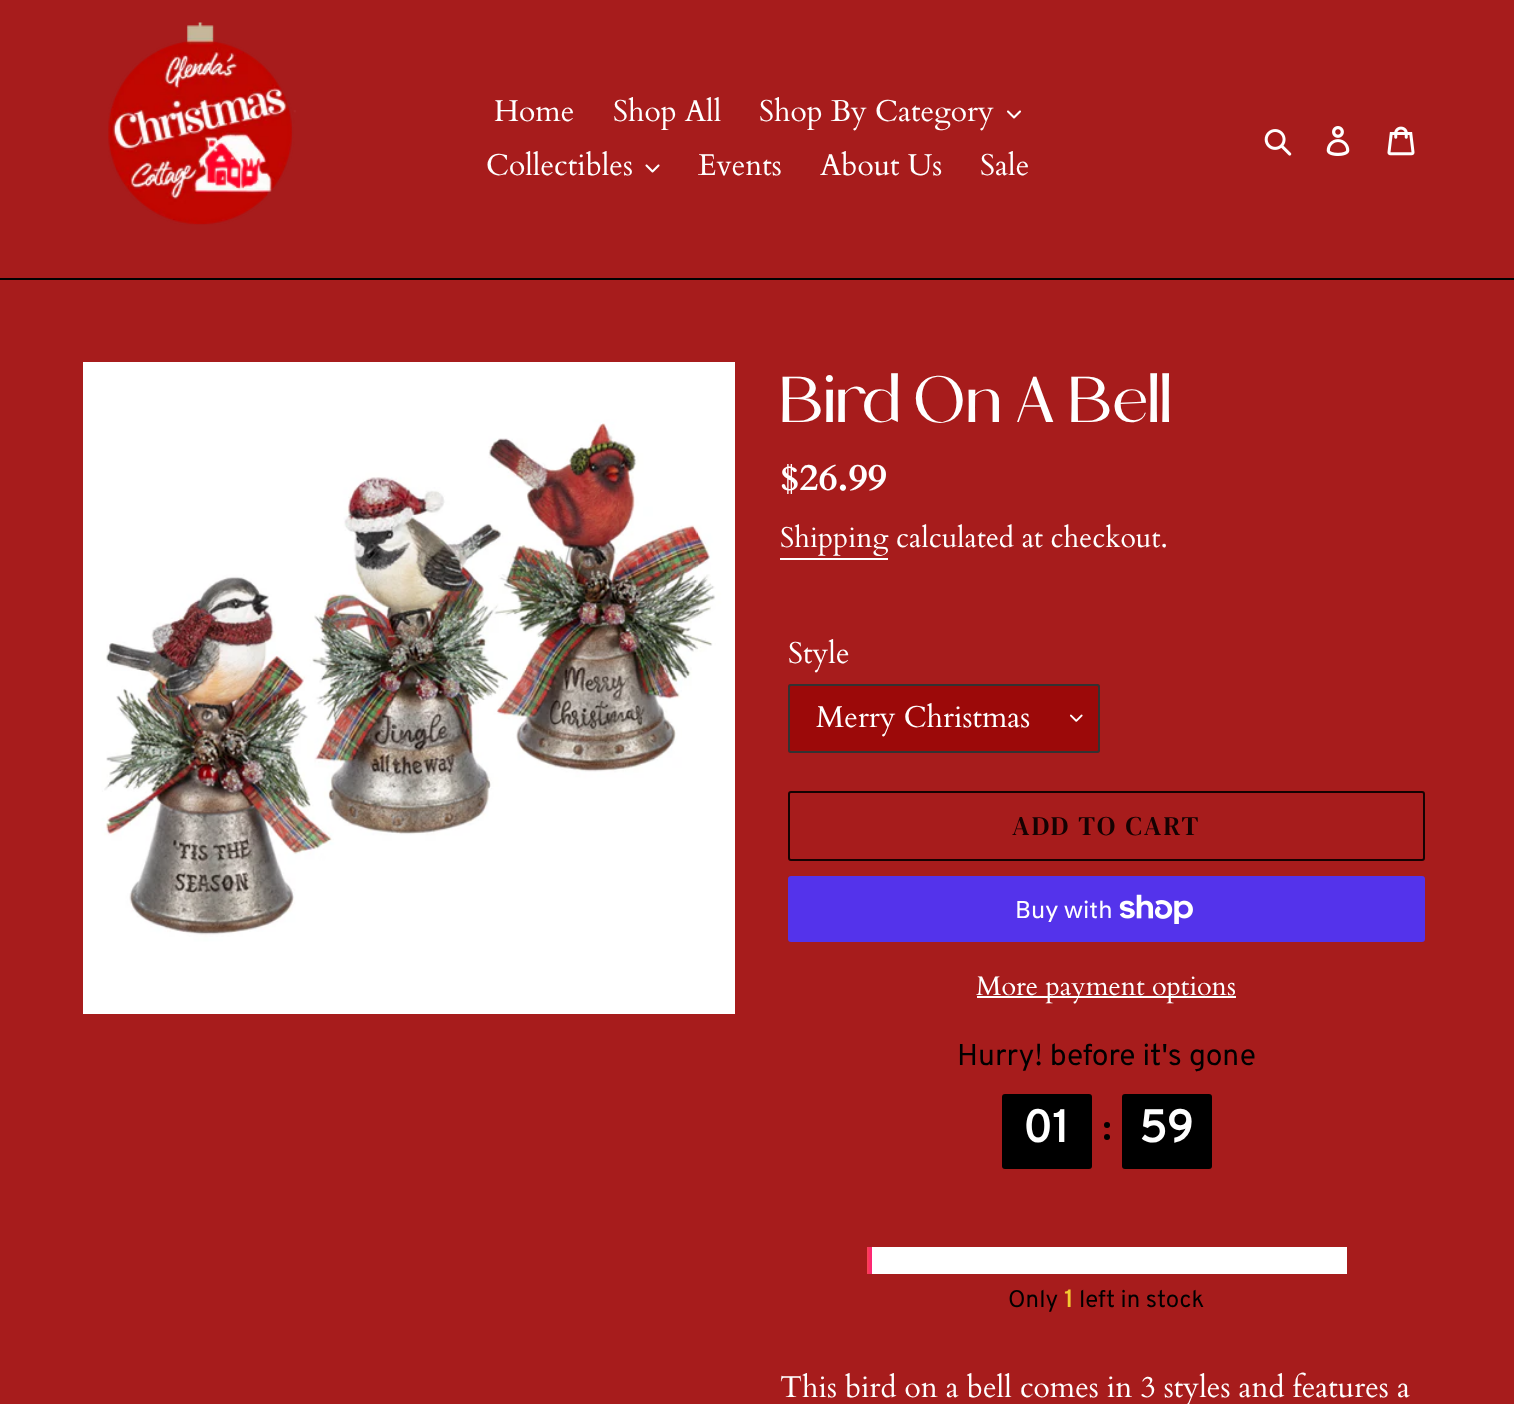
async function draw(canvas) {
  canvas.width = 1514;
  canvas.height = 1404;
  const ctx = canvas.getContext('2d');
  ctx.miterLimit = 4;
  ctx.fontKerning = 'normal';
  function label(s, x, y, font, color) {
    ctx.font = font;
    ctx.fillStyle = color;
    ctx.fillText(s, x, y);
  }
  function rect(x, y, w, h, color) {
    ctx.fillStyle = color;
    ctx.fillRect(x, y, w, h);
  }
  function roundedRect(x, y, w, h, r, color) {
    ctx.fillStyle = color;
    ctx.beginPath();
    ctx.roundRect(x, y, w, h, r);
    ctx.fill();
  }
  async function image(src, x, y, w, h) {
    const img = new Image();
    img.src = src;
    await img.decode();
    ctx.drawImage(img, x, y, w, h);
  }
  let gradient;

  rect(0, 0, 1514, 1404, '#a71c1c');
  rect(0, 278, 1514, 2, '#020101');
  await image('assets/img1.png', 108, 22, 188, 203);
  label('Home', 494, 121, '30px Cardo', '#fff');
  label('Shop All', 613, 121, '30px Cardo', '#fff');
  label('Shop By Category', 759, 121, '30px Cardo', '#fff');
  await image('assets/img2.png', 1007, 110, 14, 9);
  label('Collectibles', 486, 175, '30px Cardo', '#fff');
  await image('assets/img3.png', 645, 164, 15, 9);
  label('Events', 698, 175, '30px Cardo', '#fff');
  label('About Us', 820, 175, '30px Cardo', '#fff');
  label('Sale', 980, 175, '30px Cardo', '#fff');
  await image('assets/img4.png', 1264, 129, 28, 27);
  await image('assets/img5.png', 1326, 126, 24, 30);
  await image('assets/img6.png', 1387, 126, 28, 30);
  await image('assets/img7.png', 83, 362, 652, 652);
  label('Bird On A Bell', 780, 422, '64.5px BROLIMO', '#fff');
  label('$26.99', 780, 490, 'bold 37.5px Cardo', '#fff');
  label('Shipping calculated at checkout.', 780, 547, '28.5px Cardo', '#fff');
  rect(780, 558, 108, 2, '#fff');
  label('Style', 788, 663, '30px Cardo', '#fff');
  roundedRect(788, 684, 312, 69, 3, '#9c0909');
  await image('assets/img8.png', 1070, 714, 13, 8);
  ctx.beginPath();
  ctx.roundRect(789, 685, 310, 67, 2);
  ctx.strokeStyle = '#333232';
  ctx.lineWidth = 2;
  ctx.stroke();
  label('Merry Christmas', 816, 727, '30px Cardo', '#fff');
  ctx.beginPath();
  ctx.roundRect(789, 792, 635, 68, 2);
  ctx.strokeStyle = '#150202';
  ctx.stroke();
  ctx.letterSpacing = '2.25px';
  label('ADD TO CART', 1012, 835, '27px DM Serif Text', '#150202');
  roundedRect(788, 876, 637, 66, 3, '#5433eb');
  ctx.letterSpacing = '0px';
  label('Buy with', 1015, 918, '24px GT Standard', '#fff');
  await image('assets/img9.png', 1119, 894, 74, 30);
  rect(977, 996, 259, 2, '#fff');
  label('More payment options', 976, 995, '27px Cardo', '#fff');
  label('Hurry! before it\'s gone', 957, 1065, '30px Overpass', '#000');
  roundedRect(1002, 1094, 90, 75, 3, '#000');
  label('01', 1023, 1142, 'bold 45px Overpass', '#fff');
  ctx.fillStyle = '#000';
  ctx.beginPath();
  ctx.arc(1107, 1125, 3, 0, 2 * Math.PI);
  ctx.fill();
  ctx.beginPath();
  ctx.arc(1107, 1137, 3, 0, 2 * Math.PI);
  ctx.fill();
  roundedRect(1122, 1094, 90, 75, 3, '#000');
  label('59', 1139, 1142, 'bold 45px Overpass', '#fff');
  rect(872, 1247, 475, 27, '#fff');
  gradient = ctx.createLinearGradient(867, 1260, 872, 1260);
  gradient.addColorStop(0, '#fc4353');
  gradient.addColorStop(1, '#fc2179');
  ctx.fillStyle = gradient;
  ctx.fillRect(867, 1247, 5, 27);
  label('Only', 1008, 1307, '24px Overpass', '#000');
  label('1', 1064, 1307, 'bold 24px Overpass', '#f3ca31');
  label('left in stock', 1079, 1307, '24px Overpass', '#000');
  label('This bird on a bell comes in 3 styles and features a', 780, 1397, '30px Cardo', '#fff');
}

draw(document.querySelector('canvas'));
